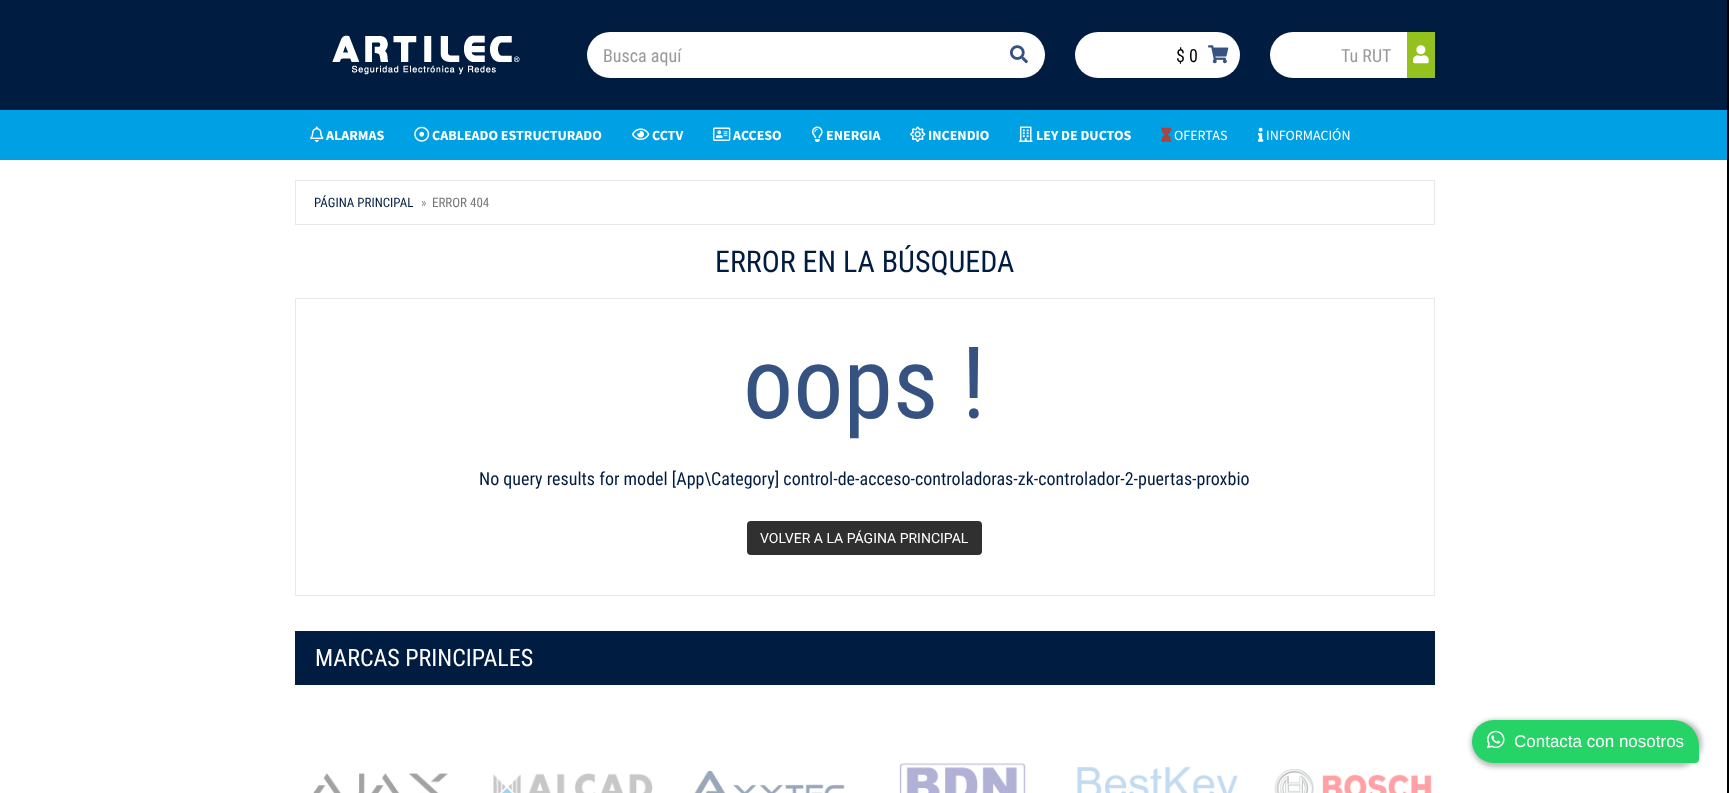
async function draw(canvas) {
  canvas.width = 1729;
  canvas.height = 793;
  const ctx = canvas.getContext('2d');
  ctx.miterLimit = 4;
  ctx.fontKerning = 'normal';
  function label(s, x, y, font, color) {
    ctx.font = font;
    ctx.fillStyle = color;
    ctx.fillText(s, x, y);
  }
  function rect(x, y, w, h, color) {
    ctx.fillStyle = color;
    ctx.fillRect(x, y, w, h);
  }
  function roundedRect(x, y, w, h, r, color) {
    ctx.fillStyle = color;
    ctx.beginPath();
    ctx.roundRect(x, y, w, h, r);
    ctx.fill();
  }
  async function image(src, x, y, w, h) {
    const img = new Image();
    img.src = src;
    await img.decode();
    ctx.drawImage(img, x, y, w, h);
  }

  rect(0, 0, 1729, 793, '#fff');
  rect(0, 0, 1727, 110, '#001c41');
  await image('assets/img1.png', 332, 35, 188, 40);
  roundedRect(587, 32, 458, 46, 23, '#fff');
  label('Busca aquí', 603, 62, '18px Roboto Condensed', '#999');
  await image('assets/img2.png', 1010, 45, 18, 19);
  roundedRect(1075, 32, 165, 46, 23, '#fff');
  label('$ 0', 1176, 62, '18px Roboto Condensed', '#000');
  await image('assets/img3.png', 1208, 45, 21, 19);
  roundedRect(1270, 32, 165, 46, 23, '#fff');
  label('Tu RUT', 1341, 62, '18px Roboto Condensed', '#999');
  rect(1407, 32, 28, 46, '#95c11f');
  await image('assets/img4.png', 1413, 45, 16, 19);
  rect(0, 110, 1727, 50, '#00a0e4');
  await image('assets/img5.png', 310, 126, 14, 16);
  label('ALARMAS', 326, 140, 'bold 14px Source Sans Pro', '#fff');
  await image('assets/img6.png', 414, 126, 16, 16);
  label('CABLEADO ESTRUCTURADO', 432, 140, 'bold 14px Source Sans Pro', '#fff');
  await image('assets/img7.png', 632, 128, 18, 12);
  label('CCTV', 652, 140, 'bold 14px Source Sans Pro', '#fff');
  await image('assets/img8.png', 713, 127, 18, 14);
  label('ACCESO', 733, 140, 'bold 14px Source Sans Pro', '#fff');
  await image('assets/img9.png', 812, 126, 11, 16);
  label('ENERGIA', 826, 140, 'bold 14px Source Sans Pro', '#fff');
  await image('assets/img10.png', 910, 126, 16, 16);
  label('INCENDIO', 928, 140, 'bold 14px Source Sans Pro', '#fff');
  await image('assets/img11.png', 1019, 126, 14, 16);
  label('LEY DE DUCTOS', 1036, 140, 'bold 14px Source Sans Pro', '#fff');
  await image('assets/img12.png', 1161, 127, 11, 15);
  label('OFERTAS', 1174, 140, '14px Source Sans Pro', '#fff');
  await image('assets/img13.png', 1258, 127, 6, 15);
  label('INFORMACIÓN', 1266, 140, '14px Source Sans Pro', '#fff');
  rect(1727, 0, 2, 793, '#000');
  ctx.strokeStyle = '#e8e8e8';
  ctx.strokeRect(295.5, 180.5, 1139, 44);
  label('PÁGINA PRINCIPAL', 314, 207, '13px Roboto Condensed', '#001c41');
  label('»', 421, 207, '13px Roboto Condensed', '#878a8c');
  label('ERROR 404', 432, 207, '13px Roboto Condensed', '#777');
  label('ERROR EN LA BÚSQUEDA', 715, 272, '30px Roboto Condensed', '#001c41');
  ctx.strokeStyle = '#e9e9e9';
  ctx.strokeRect(295.5, 298.5, 1139, 297);
  label('oops !', 743, 418, '100px Roboto Condensed', '#365281');
  label('No query results for model [App\\Category] control-de-acceso-controladoras-zk-controlador-2-puertas-proxbio', 479, 485, '18px Roboto Condensed', '#001c41');
  roundedRect(747, 521, 235, 34, 4, '#303030');
  label('VOLVER A LA PÁGINA PRINCIPAL', 760, 543, '14px Roboto', '#fff');
  rect(295, 631, 1140, 54, '#001c41');
  label('MARCAS PRINCIPALES', 315, 666, '24px Roboto Condensed', '#fff');
  ctx.fillStyle = '#1e1e1e4d';
  ctx.filter = 'blur(2.5px)';
  ctx.beginPath();
  ctx.roundRect(1471, 720, 231, 47, 28);
  ctx.fill();
  ctx.filter = 'none';
  ctx.fillStyle = '#25d366';
  ctx.beginPath();
  ctx.roundRect(1472, 720, 227, 43, [21.5, 26, 4, 21.5]);
  ctx.fill();
  await image('assets/img14.png', 1487, 730, 18, 19);
  label('Contacta con nosotros', 1514, 747, '17px Liberation Sans', '#fff');
  await image('assets/img15.png', 313, 773, 135, 20);
  await image('assets/img16.png', 493, 773, 160, 20);
  await image('assets/img17.png', 694, 770, 151, 23);
  await image('assets/img18.png', 899, 763, 127, 30);
  await image('assets/img19.png', 1077, 766, 161, 27);
  await image('assets/img20.png', 1274, 769, 158, 24);
}

draw(document.querySelector('canvas'));
